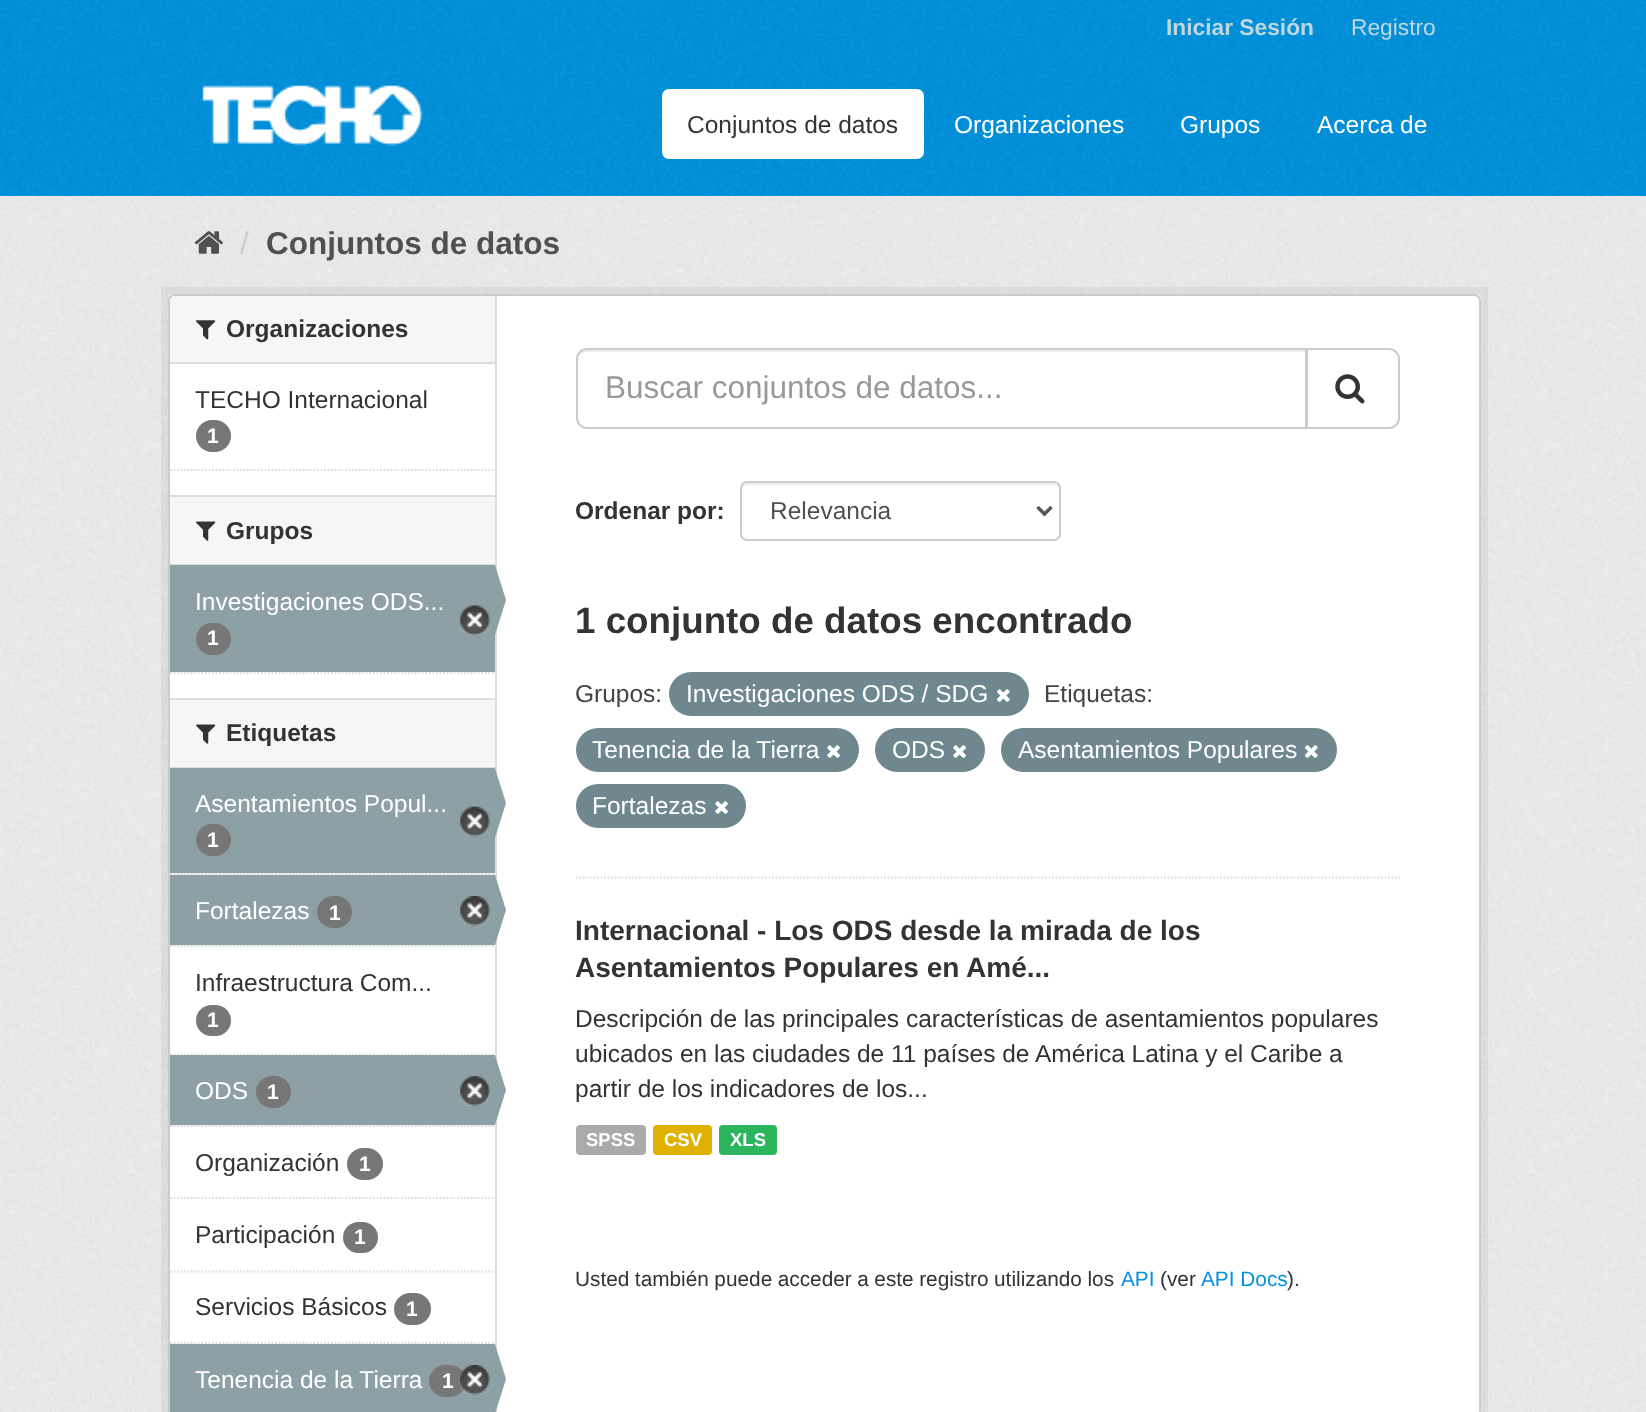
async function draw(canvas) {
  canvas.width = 1646;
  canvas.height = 1412;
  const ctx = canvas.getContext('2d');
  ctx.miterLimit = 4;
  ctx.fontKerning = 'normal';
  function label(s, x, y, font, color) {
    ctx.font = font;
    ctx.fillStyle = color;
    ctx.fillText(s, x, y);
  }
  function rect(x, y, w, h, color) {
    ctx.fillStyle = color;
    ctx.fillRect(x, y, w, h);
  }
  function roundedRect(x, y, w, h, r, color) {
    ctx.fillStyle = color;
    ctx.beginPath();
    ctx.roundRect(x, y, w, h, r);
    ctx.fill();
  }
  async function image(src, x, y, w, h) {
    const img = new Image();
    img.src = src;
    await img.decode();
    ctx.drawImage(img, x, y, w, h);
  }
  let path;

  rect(0, 0, 1646, 1412, '#0092dd');
  await image('assets/img1.png', 0, 0, 1646, 54);
  rect(1148, 0, 2, 54, '#0092dd');
  label('Iniciar Sesión', 1166, 35, 'bold 22.75px Liberation Sans', '#bfd7de');
  rect(1332, 0, 2, 54, '#0092dd');
  label('Registro', 1351, 35, '22.75px Liberation Sans', '#bfd7de');
  await image('assets/img2.png', 0, 54, 1646, 142);
  await image('assets/img3.png', 202, 85, 221, 61);
  roundedRect(662, 89, 262, 70, 7, '#fff');
  label('Conjuntos de datos', 687, 133, '24.5px Liberation Sans', '#333');
  label('Organizaciones', 954, 133, '24.5px Liberation Sans', '#fff');
  label('Grupos', 1180, 133, '24.5px Liberation Sans', '#fff');
  label('Acerca de', 1317, 133, '24.5px Liberation Sans', '#fff');
  rect(0, 196, 1646, 1216, '#eee');
  await image('assets/img4.png', 0, 196, 1646, 1216);
  await image('assets/img5.png', 194, 231, 29, 23);
  label('/', 240, 254, '31.5px Liberation Sans', '#ccc');
  label('Conjuntos de datos', 266, 254, 'bold 31.5px Liberation Sans', '#505050');
  ctx.strokeStyle = '#0000000d';
  ctx.lineWidth = 7;
  ctx.strokeRect(164.5, 290.5, 1320, 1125);
  ctx.fillStyle = '#fff';
  ctx.beginPath();
  ctx.roundRect(169, 295, 1311, 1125, 6);
  ctx.fill();
  ctx.strokeStyle = '#ccc';
  ctx.lineWidth = 2;
  ctx.stroke();
  ctx.fillStyle = '#f6f6f6';
  ctx.beginPath();
  ctx.roundRect(170, 296, 325, 68, [5, 0, 0, 0]);
  ctx.fill();
  rect(170, 362, 325, 2, '#ddd');
  await image('assets/img6.png', 196, 320, 20, 20);
  label('Organizaciones', 226, 337, 'bold 24.5px Liberation Sans', '#333');
  label('TECHO Internacional', 195, 408, '24.5px Liberation Sans', '#333');
  roundedRect(196, 420, 35, 32, 16, '#777');
  label('1', 207, 443, 'bold 21px Liberation Sans', '#fff');
  path = new Path2D('M170 470H495');
  ctx.strokeStyle = '#ddd';
  ctx.lineWidth = 1.8;
  ctx.setLineDash([1.75, 1.75]);
  ctx.stroke(path);
  rect(170, 497, 325, 67, '#f6f6f6');
  rect(170, 495, 325, 2, '#ddd');
  rect(170, 564, 325, 1, '#ddd');
  await image('assets/img7.png', 196, 521, 20, 20);
  label('Grupos', 226, 539, 'bold 24.5px Liberation Sans', '#333');
  rect(170, 565, 325, 107, '#8ca0a6');
  label('Investigaciones ODS...', 195, 610, '24.5px Liberation Sans', '#fff');
  await image('assets/img8.png', 460, 605, 30, 31);
  rect(495, 296, 2, 1116, '#ddd');
  ctx.fillStyle = '#8ca0a6';
  path = new Path2D('M495 635V565L506 600Z');
  ctx.fill(path);
  roundedRect(196, 623, 35, 32, 16, '#777');
  label('1', 207, 645, 'bold 21px Liberation Sans', '#fff');
  path = new Path2D('M170 673H495');
  ctx.stroke(path);
  rect(170, 700, 325, 67, '#f6f6f6');
  rect(170, 698, 325, 2, '#ddd');
  rect(170, 767, 325, 1, '#ddd');
  await image('assets/img7.png', 196, 724, 20, 20);
  label('Etiquetas', 226, 741, 'bold 24.5px Liberation Sans', '#333');
  rect(170, 873, 325, 2, '#f6f6f6');
  path = new Path2D('M170 874H495');
  ctx.stroke(path);
  rect(170, 768, 325, 105, '#8ca0a6');
  label('Asentamientos Popul...', 195, 812, '24.5px Liberation Sans', '#fff');
  await image('assets/img9.png', 460, 806, 30, 31);
  ctx.fillStyle = '#8ca0a6';
  path = new Path2D('M495 838V768L506 803Z');
  ctx.fill(path);
  roundedRect(196, 824, 35, 32, 16, '#777');
  label('1', 207, 847, 'bold 21px Liberation Sans', '#fff');
  rect(170, 945, 325, 2, '#f6f6f6');
  path = new Path2D('M170 946H495');
  ctx.stroke(path);
  rect(170, 875, 325, 70, '#8ca0a6');
  label('Fortalezas', 195, 919, '24.5px Liberation Sans', '#fff');
  roundedRect(317, 896, 35, 32, 16, '#777');
  label('1', 329, 920, 'bold 21px Liberation Sans', '#fff');
  await image('assets/img10.png', 460, 896, 30, 30);
  ctx.fillStyle = '#8ca0a6';
  path = new Path2D('M495 945V875L506 910Z');
  ctx.fill(path);
  path = new Path2D('M170 1054.5H495');
  ctx.stroke(path);
  label('Infraestructura Com...', 195, 991, '24.5px Liberation Sans', '#333');
  roundedRect(196, 1005, 35, 31, 15.5, '#777');
  label('1', 207, 1027, 'bold 21px Liberation Sans', '#fff');
  rect(170, 1125, 325, 2, '#f6f6f6');
  path = new Path2D('M170 1126H495');
  ctx.stroke(path);
  rect(170, 1055, 325, 70, '#8ca0a6');
  label('ODS', 195, 1099, '24.5px Liberation Sans', '#fff');
  roundedRect(256, 1076, 35, 32, 16, '#777');
  label('1', 267, 1099, 'bold 21px Liberation Sans', '#fff');
  await image('assets/img11.png', 460, 1076, 30, 30);
  ctx.fillStyle = '#8ca0a6';
  path = new Path2D('M495 1125V1055L506 1090Z');
  ctx.fill(path);
  path = new Path2D('M170 1198H495');
  ctx.stroke(path);
  label('Organización', 195, 1171, '24.5px Liberation Sans', '#333');
  roundedRect(347, 1148, 36, 32, 16, '#777');
  label('1', 359, 1171, 'bold 21px Liberation Sans', '#fff');
  path = new Path2D('M170 1271.5H495');
  ctx.stroke(path);
  label('Participación', 195, 1243, '24.5px Liberation Sans', '#333');
  roundedRect(343, 1222, 35, 31, 15.5, '#777');
  label('1', 354, 1244, 'bold 21px Liberation Sans', '#fff');
  path = new Path2D('M170 1343H495');
  ctx.stroke(path);
  label('Servicios Básicos', 195, 1315, '24.5px Liberation Sans', '#333');
  roundedRect(394, 1293, 37, 32, 16, '#777');
  label('1', 406, 1316, 'bold 21px Liberation Sans', '#fff');
  rect(170, 1344, 325, 68, '#8ca0a6');
  label('Tenencia de la Tierra', 195, 1388, '24.5px Liberation Sans', '#fff');
  roundedRect(429, 1365, 37, 32, 16, '#777');
  label('1', 442, 1388, 'bold 21px Liberation Sans', '#fff');
  await image('assets/img12.png', 460, 1365, 30, 30);
  ctx.fillStyle = '#8ca0a6';
  path = new Path2D('M495 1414V1344L506 1379Z');
  ctx.fill(path);
  path = new Path2D('M576 877.5H1400');
  ctx.stroke(path);
  ctx.fillStyle = '#ececec';
  path = new Path2D('M586 352H1306V350H587C582 350 578 354 578 359V360C578 356 581 352 586 352Z');
  ctx.fill(path);
  ctx.beginPath();
  ctx.roundRect(577, 349, 729, 79, [10, 0, 0, 10]);
  ctx.strokeStyle = '#ccc';
  ctx.lineWidth = 2;
  ctx.setLineDash([]);
  ctx.stroke();
  label('Buscar conjuntos de datos...', 605, 398, '31.5px Liberation Sans', '#999');
  ctx.fillStyle = '#fff';
  ctx.beginPath();
  ctx.roundRect(1307, 349, 92, 79, [0, 10, 10, 0]);
  ctx.fill();
  ctx.stroke();
  await image('assets/img13.png', 1335, 374, 30, 30);
  label('Ordenar por:', 575, 519, 'bold 24.5px Liberation Sans', '#333');
  ctx.fillStyle = '#ececec';
  path = new Path2D('M747 485H1054C1056 485 1059 487 1059 490V488C1059 485 1057 483 1054 483H747C744 483 742 485 742 488V490C742 487 744 485 747 485Z');
  ctx.fill(path);
  ctx.beginPath();
  ctx.roundRect(741, 482, 319, 58, 6);
  ctx.stroke();
  path = new Path2D('M1037.5 507L1044.5 514L1051.5 507');
  ctx.strokeStyle = '#555';
  ctx.lineWidth = 3.5;
  ctx.stroke(path);
  label('Relevancia', 770, 519, '24.5px Liberation Sans', '#505050');
  label('1 conjunto de datos encontrado', 575, 633, 'bold 36.75px Liberation Sans', '#333');
  label('Grupos:', 575, 702, '24.5px Liberation Sans', '#444');
  roundedRect(669, 672, 360, 44, 22, '#6f8890');
  label('Investigaciones ODS / SDG', 686, 702, '24.5px Liberation Sans', '#fff');
  await image('assets/img14.png', 997, 689, 13, 13);
  label('Etiquetas:', 1044, 702, '24.5px Liberation Sans', '#444');
  roundedRect(576, 728, 283, 44, 22, '#6f8890');
  label('Tenencia de la Tierra', 592, 758, '24.5px Liberation Sans', '#fff');
  await image('assets/img15.png', 827, 745, 13, 13);
  roundedRect(875, 728, 110, 44, 22, '#6f8890');
  label('ODS', 892, 758, '24.5px Liberation Sans', '#fff');
  await image('assets/img16.png', 953, 745, 13, 13);
  roundedRect(1001, 728, 336, 44, 22, '#6f8890');
  label('Asentamientos Populares', 1018, 758, '24.5px Liberation Sans', '#fff');
  await image('assets/img17.png', 1305, 745, 13, 13);
  roundedRect(576, 784, 170, 44, 22, '#6f8890');
  label('Fortalezas', 592, 814, '24.5px Liberation Sans', '#fff');
  await image('assets/img15.png', 715, 801, 13, 13);
  label('Internacional - Los ODS desde la mirada de los', 575, 940, 'bold 28px Liberation Sans', '#333');
  label('Asentamientos Populares en Amé...', 575, 977, 'bold 28px Liberation Sans', '#333');
  label('Descripción de las principales características de asentamientos populares', 575, 1027, '24.5px Liberation Sans', '#333');
  label('ubicados en las ciudades de 11 países de América Latina y el Caribe a', 575, 1062, '24.5px Liberation Sans', '#333');
  label('partir de los indicadores de los...', 575, 1097, '24.5px Liberation Sans', '#333');
  roundedRect(576, 1125, 70, 30, 4, '#aaa');
  label('SPSS', 586, 1146, 'bold 18.5px Liberation Sans', '#fff');
  roundedRect(653, 1125, 59, 30, 4, '#dfb100');
  label('CSV', 664, 1146, 'bold 18.5px Liberation Sans', '#fff');
  roundedRect(719, 1125, 58, 30, 4, '#2db55d');
  label('XLS', 730, 1146, 'bold 18.5px Liberation Sans', '#fff');
  ctx.wordSpacing = '-0.25px';
  label('Usted también puede acceder a este registro utilizando los', 575, 1286, '20.8px Liberation Sans', '#333');
  ctx.wordSpacing = '0px';
  label('API', 1121, 1286, '20.8px Liberation Sans', '#0092dd');
  label('(ver', 1160, 1286, '20.8px Liberation Sans', '#333');
  label('API Docs', 1201, 1286, '20.8px Liberation Sans', '#0092dd');
  label(').', 1287, 1286, '20.8px Liberation Sans', '#333');
}

draw(document.querySelector('canvas'));
